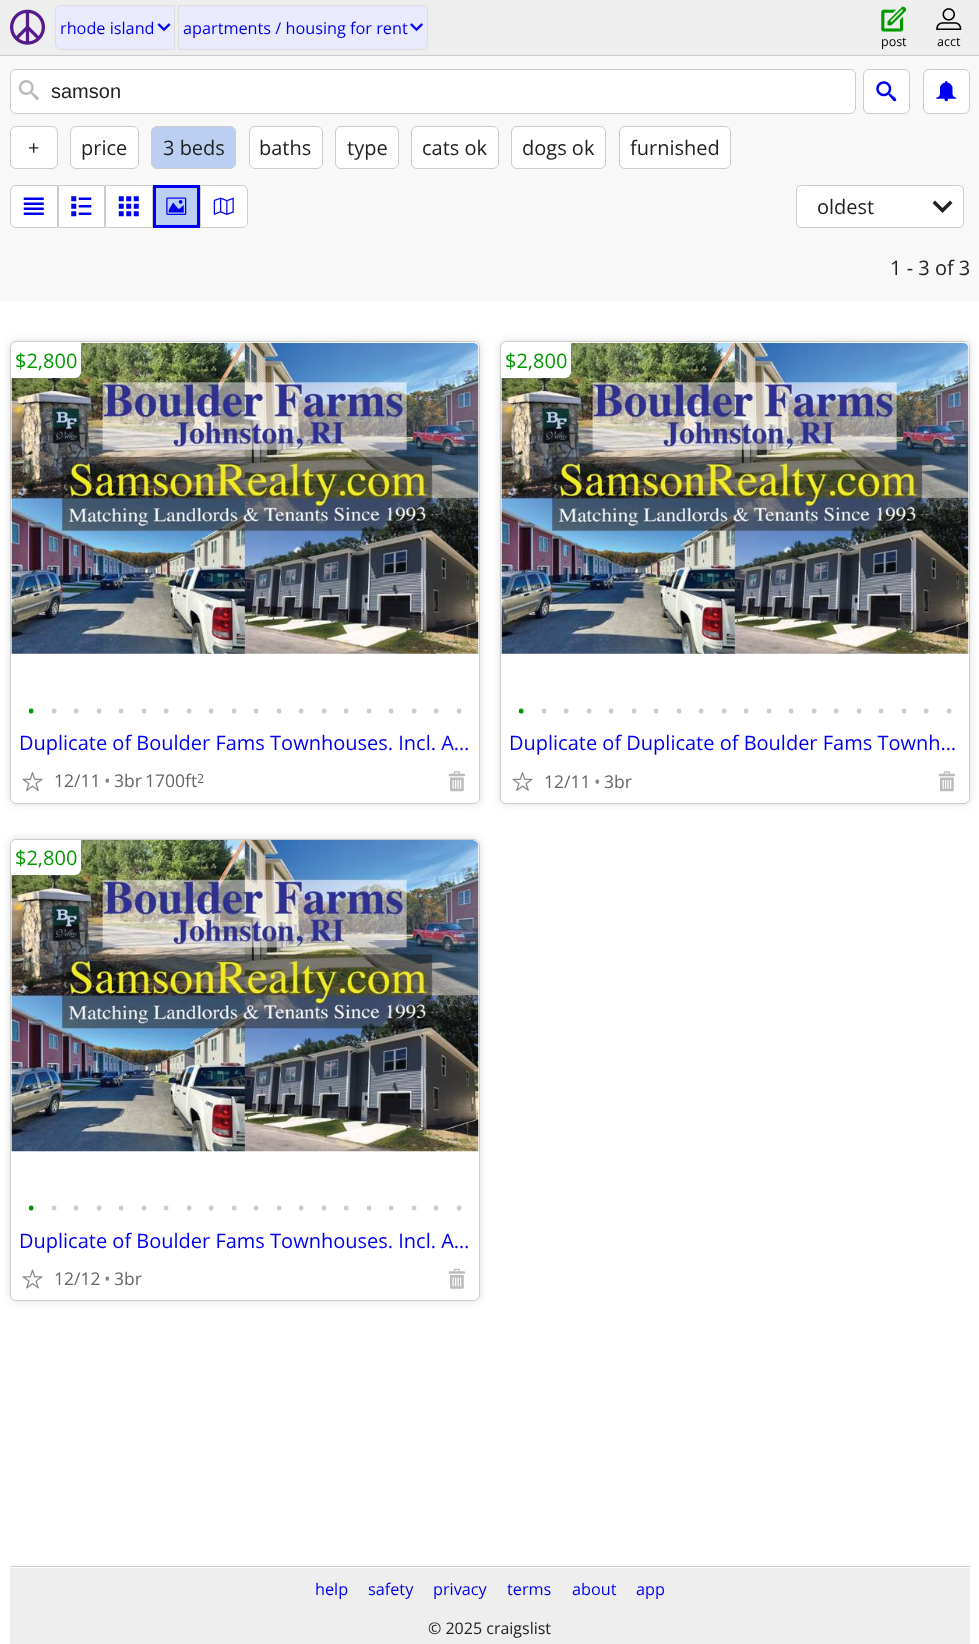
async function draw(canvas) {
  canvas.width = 979;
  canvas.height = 1644;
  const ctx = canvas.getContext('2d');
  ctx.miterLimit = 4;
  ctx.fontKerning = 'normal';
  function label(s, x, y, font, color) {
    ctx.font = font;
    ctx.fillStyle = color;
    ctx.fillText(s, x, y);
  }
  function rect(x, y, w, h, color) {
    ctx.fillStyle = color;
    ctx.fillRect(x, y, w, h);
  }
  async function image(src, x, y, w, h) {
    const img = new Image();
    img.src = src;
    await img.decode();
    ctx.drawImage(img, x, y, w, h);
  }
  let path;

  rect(0, 0, 979, 1644, '#fff');
  rect(0, 0, 979, 55, '#eee');
  rect(0, 55, 979, 1, '#ccc');
  await image('assets/img1.png', 10, 9, 35, 36);
  ctx.fillStyle = '#eaeaff';
  ctx.beginPath();
  ctx.roundRect(55.5, 5.5, 119, 44, [5.5, 0, 0, 5.5]);
  ctx.fill();
  ctx.strokeStyle = '#ddd';
  ctx.stroke();
  label('rhode island', 60, 34, '16.25px Open Sans', '#00e');
  await image('assets/img2.png', 157, 23, 14, 9);
  ctx.fillStyle = '#eaeaff';
  ctx.beginPath();
  ctx.roundRect(178.5, 5.5, 249, 44, [0, 5.5, 5.5, 0]);
  ctx.fill();
  ctx.stroke();
  label('apartments / housing for rent', 183, 34, '16.25px Open Sans', '#00e');
  await image('assets/img3.png', 410, 23, 13, 9);
  await image('assets/img4.png', 881, 6, 26, 26);
  label('post', 881, 46, '12.5px Open Sans', '#000');
  await image('assets/img5.png', 936, 8, 26, 22);
  label('acct', 937, 46, '12.5px Open Sans', '#000');
  rect(0, 56, 979, 245, '#f8f8f8');
  ctx.fillStyle = '#fff';
  ctx.beginPath();
  ctx.roundRect(10.5, 69.5, 845, 44, 5.5);
  ctx.fill();
  ctx.strokeStyle = '#ccc';
  ctx.stroke();
  await image('assets/img6.png', 18, 80, 21, 20);
  label('samson', 51, 98, '20px Liberation Sans', '#222');
  ctx.fillStyle = '#fff';
  ctx.beginPath();
  ctx.roundRect(863.5, 69.5, 46, 44, 5.5);
  ctx.fill();
  ctx.stroke();
  await image('assets/img7.png', 876, 81, 21, 21);
  ctx.beginPath();
  ctx.roundRect(923.5, 69.5, 46, 44, 5.5);
  ctx.fill();
  ctx.stroke();
  await image('assets/img8.png', 936, 81, 21, 21);
  ctx.beginPath();
  ctx.roundRect(10.5, 126.5, 47, 42, 5.5);
  ctx.fill();
  ctx.stroke();
  label('+', 28, 155, '20px Open Sans', '#222');
  ctx.fillStyle = '#fff';
  ctx.beginPath();
  ctx.roundRect(70.5, 126.5, 68, 42, 5.5);
  ctx.fill();
  ctx.stroke();
  label('price', 81, 155, '20px Open Sans', '#222');
  ctx.fillStyle = '#bacff2';
  ctx.beginPath();
  ctx.roundRect(151.5, 126.5, 84, 42, 5.5);
  ctx.fill();
  ctx.stroke();
  label('3 beds', 163, 155, '20px Open Sans', '#222');
  ctx.fillStyle = '#fff';
  ctx.beginPath();
  ctx.roundRect(249.5, 126.5, 73, 42, 5.5);
  ctx.fill();
  ctx.stroke();
  label('baths', 259, 155, '20px Open Sans', '#222');
  ctx.fillStyle = '#fff';
  ctx.beginPath();
  ctx.roundRect(335.5, 126.5, 63, 42, 5.5);
  ctx.fill();
  ctx.stroke();
  label('type', 347, 155, '20px Open Sans', '#222');
  ctx.fillStyle = '#fff';
  ctx.beginPath();
  ctx.roundRect(411.5, 126.5, 87, 42, 5.5);
  ctx.fill();
  ctx.stroke();
  label('cats ok', 422, 155, '20px Open Sans', '#222');
  ctx.fillStyle = '#fff';
  ctx.beginPath();
  ctx.roundRect(511.5, 126.5, 94, 42, 5.5);
  ctx.fill();
  ctx.stroke();
  label('dogs ok', 522, 155, '20px Open Sans', '#222');
  ctx.fillStyle = '#fff';
  ctx.beginPath();
  ctx.roundRect(619.5, 126.5, 111, 42, 5.5);
  ctx.fill();
  ctx.stroke();
  label('furnished', 630, 155, '20px Open Sans', '#222');
  ctx.fillStyle = '#fff';
  ctx.beginPath();
  ctx.roundRect(10.5, 185.5, 47, 42, [5.5, 0, 0, 5.5]);
  ctx.fill();
  ctx.stroke();
  await image('assets/img9.png', 23, 197, 21, 18);
  ctx.beginPath();
  ctx.rect(58.5, 185.5, 46, 42);
  ctx.fill();
  ctx.stroke();
  await image('assets/img10.png', 71, 196, 21, 21);
  ctx.beginPath();
  ctx.rect(105.5, 185.5, 47, 42);
  ctx.fill();
  ctx.stroke();
  await image('assets/img11.png', 118, 196, 21, 21);
  ctx.fillStyle = '#bacff2';
  ctx.beginPath();
  ctx.rect(154.5, 186.5, 44, 40);
  ctx.fill();
  ctx.strokeStyle = '#00e';
  ctx.lineWidth = 3;
  ctx.stroke();
  await image('assets/img12.png', 166, 197, 21, 18);
  ctx.fillStyle = '#fff';
  ctx.beginPath();
  ctx.roundRect(200.5, 185.5, 47, 42, [0, 5.5, 5.5, 0]);
  ctx.fill();
  ctx.strokeStyle = '#ccc';
  ctx.lineWidth = 1;
  ctx.stroke();
  await image('assets/img13.png', 213, 197, 21, 18);
  ctx.beginPath();
  ctx.roundRect(796.5, 185.5, 167, 42, 4.5);
  ctx.fill();
  ctx.stroke();
  label('oldest', 817, 214, '20px Open Sans', '#222');
  path = new Path2D('M952.5 203L950 200.5L942.5 208L935 200.5L932.5 203L942.5 213Z');
  ctx.fill(path);
  label('1 - 3 of 3', 890, 275, '20px Open Sans', '#222');
  ctx.save();
  path = new Path2D('M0 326H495V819H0ZM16 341H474C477.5 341 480 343.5 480 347V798C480 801.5 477.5 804 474 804H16C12.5 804 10 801.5 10 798V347C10 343.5 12.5 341 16 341Z');
  ctx.clip(path, 'evenodd');
  ctx.fillStyle = '#ddd';
  ctx.filter = 'blur(4.5px)';
  ctx.beginPath();
  ctx.roundRect(10, 341, 470, 463, 6);
  ctx.fill();
  ctx.filter = 'none';
  ctx.restore();
  ctx.beginPath();
  ctx.roundRect(10.5, 341.5, 469, 462, 5.5);
  ctx.stroke();
  await image('assets/img14.png', 11, 342, 468, 312);
  ctx.fillStyle = '#fff';
  ctx.beginPath();
  ctx.roundRect(10, 341, 71, 37, [6, 0, 6, 0]);
  ctx.fill();
  ctx.fillStyle = '#ccc';
  path = new Path2D('M16 341H81V371C81 375 78 378 75 378H10V348C10 344 13 341 16 341ZM16 342H81V371C81 375 78 378 75 378H11V348C11 345 13 342 16 342Z');
  ctx.fill(path, 'evenodd');
  label('$2,800', 15, 368, '20px Open Sans', '#090');
  label('•', 27, 719, '22px Open Sans', '#090');
  label('•', 50, 719, '22px Open Sans', '#ccc');
  label('•', 72, 719, '22px Open Sans', '#ccc');
  label('•', 95, 719, '22px Open Sans', '#ccc');
  label('•', 117, 719, '22px Open Sans', '#ccc');
  label('•', 140, 719, '22px Open Sans', '#ccc');
  label('•', 162, 719, '22px Open Sans', '#ccc');
  label('•', 185, 719, '22px Open Sans', '#ccc');
  label('•', 207, 719, '22px Open Sans', '#ccc');
  label('•', 230, 719, '22px Open Sans', '#ccc');
  label('•', 252, 719, '22px Open Sans', '#ccc');
  label('•', 275, 719, '22px Open Sans', '#ccc');
  label('•', 297, 719, '22px Open Sans', '#ccc');
  label('•', 320, 719, '22px Open Sans', '#ccc');
  label('•', 342, 719, '22px Open Sans', '#ccc');
  label('•', 365, 719, '22px Open Sans', '#ccc');
  label('•', 387, 719, '22px Open Sans', '#ccc');
  label('•', 410, 719, '22px Open Sans', '#ccc');
  label('•', 432, 719, '22px Open Sans', '#ccc');
  label('•', 455, 719, '22px Open Sans', '#ccc');
  label('Duplicate of Boulder Fams Townhouses. Incl. A…', 19, 750, '20px Open Sans', '#00e');
  await image('assets/img15.png', 22, 772, 21, 19);
  label('12/11', 54, 787, '17.5px Open Sans', '#666');
  label('•', 104, 787, '17.5px Open Sans', '#888');
  label('3br', 114, 787, '17.5px Open Sans', '#666');
  label('1700ft', 145, 787, '17.5px Open Sans', '#666');
  label('2', 197, 783, '12.5px Open Sans', '#666');
  await image('assets/img16.png', 448, 771, 17, 21);
  ctx.save();
  path = new Path2D('M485 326H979V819H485ZM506 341H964C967.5 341 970 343.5 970 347V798C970 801.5 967.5 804 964 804H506C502.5 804 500 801.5 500 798V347C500 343.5 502.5 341 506 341Z');
  ctx.clip(path, 'evenodd');
  ctx.fillStyle = '#ddd';
  ctx.filter = 'blur(4.5px)';
  ctx.beginPath();
  ctx.roundRect(500, 341, 470, 463, 6);
  ctx.fill();
  ctx.filter = 'none';
  ctx.restore();
  ctx.beginPath();
  ctx.roundRect(500.5, 341.5, 469, 462, 5.5);
  ctx.stroke();
  await image('assets/img14.png', 501, 342, 468, 312);
  ctx.fillStyle = '#fff';
  ctx.beginPath();
  ctx.roundRect(500, 341, 71, 37, [6, 0, 6, 0]);
  ctx.fill();
  ctx.fillStyle = '#ccc';
  path = new Path2D('M506 341H571V371C571 375 568 378 565 378H500V348C500 344 503 341 506 341ZM506 342H571V371C571 375 568 378 565 378H501V348C501 345 503 342 506 342Z');
  ctx.fill(path, 'evenodd');
  label('$2,800', 505, 368, '20px Open Sans', '#090');
  label('•', 517, 719, '22px Open Sans', '#090');
  label('•', 540, 719, '22px Open Sans', '#ccc');
  label('•', 562, 719, '22px Open Sans', '#ccc');
  label('•', 585, 719, '22px Open Sans', '#ccc');
  label('•', 607, 719, '22px Open Sans', '#ccc');
  label('•', 630, 719, '22px Open Sans', '#ccc');
  label('•', 652, 719, '22px Open Sans', '#ccc');
  label('•', 675, 719, '22px Open Sans', '#ccc');
  label('•', 697, 719, '22px Open Sans', '#ccc');
  label('•', 720, 719, '22px Open Sans', '#ccc');
  label('•', 742, 719, '22px Open Sans', '#ccc');
  label('•', 765, 719, '22px Open Sans', '#ccc');
  label('•', 787, 719, '22px Open Sans', '#ccc');
  label('•', 810, 719, '22px Open Sans', '#ccc');
  label('•', 832, 719, '22px Open Sans', '#ccc');
  label('•', 855, 719, '22px Open Sans', '#ccc');
  label('•', 877, 719, '22px Open Sans', '#ccc');
  label('•', 900, 719, '22px Open Sans', '#ccc');
  label('•', 922, 719, '22px Open Sans', '#ccc');
  label('•', 945, 719, '22px Open Sans', '#ccc');
  label('Duplicate of Duplicate of Boulder Fams Townh…', 509, 750, '20px Open Sans', '#00e');
  await image('assets/img15.png', 512, 772, 21, 19);
  label('12/11', 544, 788, '17.5px Open Sans', '#666');
  label('•', 594, 788, '17.5px Open Sans', '#888');
  label('3br', 604, 788, '17.5px Open Sans', '#666');
  await image('assets/img16.png', 938, 771, 17, 21);
  ctx.save();
  path = new Path2D('M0 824H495V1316H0ZM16 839H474C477.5 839 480 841.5 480 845V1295C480 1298.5 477.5 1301 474 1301H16C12.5 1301 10 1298.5 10 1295V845C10 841.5 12.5 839 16 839Z');
  ctx.clip(path, 'evenodd');
  ctx.fillStyle = '#ddd';
  ctx.filter = 'blur(4.5px)';
  ctx.beginPath();
  ctx.roundRect(10, 839, 470, 462, 6);
  ctx.fill();
  ctx.filter = 'none';
  ctx.restore();
  ctx.beginPath();
  ctx.roundRect(10.5, 839.5, 469, 461, 5.5);
  ctx.stroke();
  await image('assets/img17.png', 11, 840, 468, 312);
  ctx.fillStyle = '#fff';
  ctx.beginPath();
  ctx.roundRect(10, 839, 71, 36, [6, 0, 6, 0]);
  ctx.fill();
  ctx.fillStyle = '#ccc';
  path = new Path2D('M16 839H81V869C81 872 78 875 75 875H10V845C10 842 13 839 16 839ZM16 840H81V869C81 872 78 875 75 875H11V845C11 842 13 840 16 840Z');
  ctx.fill(path, 'evenodd');
  label('$2,800', 15, 865, '20px Open Sans', '#090');
  label('•', 27, 1216, '22px Open Sans', '#090');
  label('•', 50, 1216, '22px Open Sans', '#ccc');
  label('•', 72, 1216, '22px Open Sans', '#ccc');
  label('•', 95, 1216, '22px Open Sans', '#ccc');
  label('•', 117, 1216, '22px Open Sans', '#ccc');
  label('•', 140, 1216, '22px Open Sans', '#ccc');
  label('•', 162, 1216, '22px Open Sans', '#ccc');
  label('•', 185, 1216, '22px Open Sans', '#ccc');
  label('•', 207, 1216, '22px Open Sans', '#ccc');
  label('•', 230, 1216, '22px Open Sans', '#ccc');
  label('•', 252, 1216, '22px Open Sans', '#ccc');
  label('•', 275, 1216, '22px Open Sans', '#ccc');
  label('•', 297, 1216, '22px Open Sans', '#ccc');
  label('•', 320, 1216, '22px Open Sans', '#ccc');
  label('•', 342, 1216, '22px Open Sans', '#ccc');
  label('•', 365, 1216, '22px Open Sans', '#ccc');
  label('•', 387, 1216, '22px Open Sans', '#ccc');
  label('•', 410, 1216, '22px Open Sans', '#ccc');
  label('•', 432, 1216, '22px Open Sans', '#ccc');
  label('•', 455, 1216, '22px Open Sans', '#ccc');
  label('Duplicate of Boulder Fams Townhouses. Incl. A…', 19, 1248, '20px Open Sans', '#00e');
  await image('assets/img18.png', 22, 1269, 21, 20);
  label('12/12', 54, 1285, '17.5px Open Sans', '#666');
  label('•', 104, 1285, '17.5px Open Sans', '#888');
  label('3br', 114, 1285, '17.5px Open Sans', '#666');
  await image('assets/img19.png', 448, 1268, 17, 21);
  rect(10, 1568, 960, 76, '#eee');
  rect(10, 1566, 960, 1, '#ccc');
  label('help', 315, 1595, '16.25px Open Sans', '#00e');
  label('safety', 368, 1595, '16.25px Open Sans', '#00e');
  label('privacy', 433, 1595, '16.25px Open Sans', '#00e');
  label('terms', 507, 1595, '16.25px Open Sans', '#00e');
  label('about', 572, 1595, '16.25px Open Sans', '#00e');
  label('app', 636, 1595, '16.25px Open Sans', '#00e');
  label('© 2025 craigslist', 428, 1634, '16px Open Sans', '#222');
}

draw(document.querySelector('canvas'));
